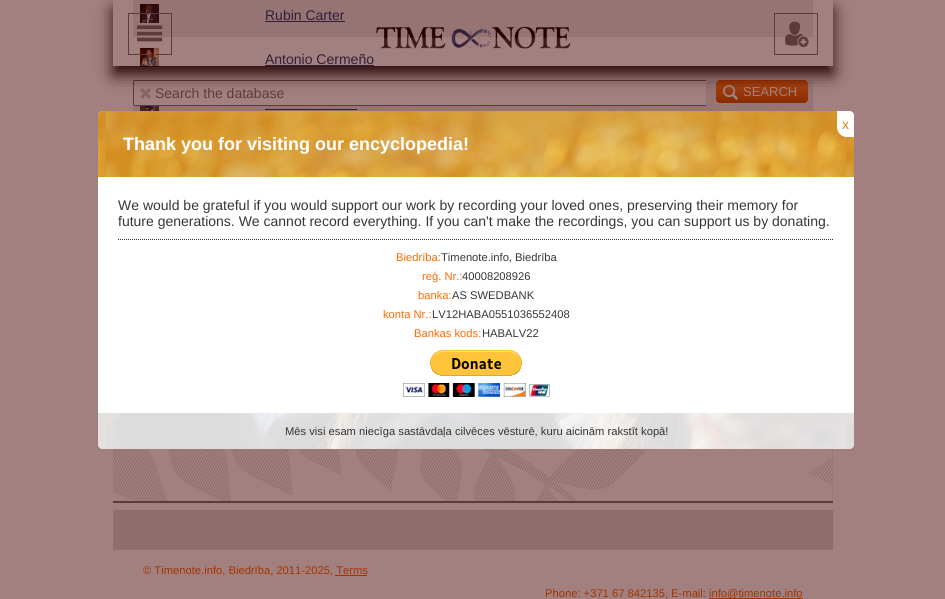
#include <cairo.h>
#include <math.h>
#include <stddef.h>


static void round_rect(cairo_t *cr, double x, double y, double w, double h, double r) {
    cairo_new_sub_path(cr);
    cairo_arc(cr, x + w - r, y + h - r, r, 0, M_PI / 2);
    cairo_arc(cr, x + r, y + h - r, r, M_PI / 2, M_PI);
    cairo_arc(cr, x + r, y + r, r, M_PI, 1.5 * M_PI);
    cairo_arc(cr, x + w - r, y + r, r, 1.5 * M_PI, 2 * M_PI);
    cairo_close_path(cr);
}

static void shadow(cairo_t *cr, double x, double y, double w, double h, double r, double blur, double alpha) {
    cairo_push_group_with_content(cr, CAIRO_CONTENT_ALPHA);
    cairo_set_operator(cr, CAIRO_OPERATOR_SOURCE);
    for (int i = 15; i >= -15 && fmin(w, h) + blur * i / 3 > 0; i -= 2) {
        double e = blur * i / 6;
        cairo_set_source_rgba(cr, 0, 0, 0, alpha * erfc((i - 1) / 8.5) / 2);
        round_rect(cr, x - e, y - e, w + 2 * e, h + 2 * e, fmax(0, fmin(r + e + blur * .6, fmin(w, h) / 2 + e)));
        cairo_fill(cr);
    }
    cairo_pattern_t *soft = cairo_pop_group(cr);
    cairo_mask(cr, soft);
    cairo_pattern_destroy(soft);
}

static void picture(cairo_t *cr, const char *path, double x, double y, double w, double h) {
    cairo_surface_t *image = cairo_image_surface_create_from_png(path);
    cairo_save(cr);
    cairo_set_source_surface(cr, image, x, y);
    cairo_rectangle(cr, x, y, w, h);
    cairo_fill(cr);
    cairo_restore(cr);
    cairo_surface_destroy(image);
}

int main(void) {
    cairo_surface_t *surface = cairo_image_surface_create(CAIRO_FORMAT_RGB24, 945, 599);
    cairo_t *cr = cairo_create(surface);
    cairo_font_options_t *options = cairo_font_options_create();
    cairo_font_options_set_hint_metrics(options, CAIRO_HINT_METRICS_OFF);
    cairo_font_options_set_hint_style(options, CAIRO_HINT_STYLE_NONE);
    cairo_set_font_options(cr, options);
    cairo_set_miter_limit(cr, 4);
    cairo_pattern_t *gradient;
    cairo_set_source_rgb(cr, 0.635, 0.502, 0.502);
    cairo_paint(cr);
    cairo_set_source_rgb(cr, 0.365, 0.231, 0.231);
    cairo_rectangle(cr, 113, 501, 720, 2);
    cairo_fill(cr);
    cairo_set_source_rgb(cr, 0.588, 0.455, 0.455);
    cairo_rectangle(cr, 133, 0, 680, 37);
    cairo_fill(cr);
    picture(cr, "img1.png", 140, 4, 19, 19);
    cairo_select_font_face(cr, "Liberation Sans", CAIRO_FONT_SLANT_NORMAL, CAIRO_FONT_WEIGHT_NORMAL);
    cairo_set_font_size(cr, 14);
    cairo_set_source_rgb(cr, 0.196, 0.118, 0.227);
    cairo_move_to(cr, 265, 20);
    cairo_show_text(cr, "Rubin Carter");
    cairo_rectangle(cr, 265, 21, 80, 1);
    cairo_fill(cr);
    picture(cr, "img2.png", 140, 48, 19, 19);
    cairo_move_to(cr, 265, 64);
    cairo_show_text(cr, "Antonio Cermeño");
    cairo_rectangle(cr, 265, 65, 109, 1);
    cairo_fill(cr);
    cairo_set_source_rgb(cr, 0.588, 0.455, 0.455);
    cairo_rectangle(cr, 133, 81, 680, 30);
    cairo_fill(cr);
    picture(cr, "img3.png", 140, 106, 19, 5);
    cairo_set_source_rgb(cr, 0.196, 0.118, 0.227);
    cairo_rectangle(cr, 265, 109, 92, 1);
    cairo_fill(cr);
    picture(cr, "img4.png", 113, 449, 720, 52);
    cairo_set_source_rgb(cr, 0.635, 0.502, 0.502);
    cairo_new_path(cr);
    cairo_move_to(cr, 135, 80);
    cairo_line_to(cr, 706, 80);
    cairo_line_to(cr, 706, 106);
    cairo_line_to(cr, 135, 106);
    cairo_curve_to(cr, 134, 106, 133, 105, 133, 104);
    cairo_line_to(cr, 133, 82);
    cairo_curve_to(cr, 133, 81, 134, 80, 135, 80);
    cairo_close_path(cr);
    cairo_fill(cr);
    gradient = cairo_pattern_create_linear(762, 80, 762, 103);
    cairo_pattern_add_color_stop_rgba(gradient, 0, 0.635, 0.208, 0, 1);
    cairo_pattern_add_color_stop_rgba(gradient, 0.33, 0.635, 0.251, 0.071, 1);
    cairo_pattern_add_color_stop_rgba(gradient, 0.66, 0.588, 0.2, 0.012, 1);
    cairo_pattern_add_color_stop_rgba(gradient, 1, 0.537, 0.173, 0, 1);
    cairo_set_source(cr, gradient);
    cairo_pattern_destroy(gradient);
    round_rect(cr, 716, 80, 92, 23, 4);
    cairo_fill(cr);
    cairo_save(cr);
    cairo_rectangle(cr, 133, 80, 573, 26);
    cairo_clip(cr);
    round_rect(cr, 133.5, 80.5, 584, 25, 1.5);
    cairo_set_source_rgb(cr, 0.365, 0.231, 0.231);
    cairo_set_line_width(cr, 1);
    cairo_stroke(cr);
    cairo_restore(cr);
    picture(cr, "img8.png", 140, 88, 11, 11);
    picture(cr, "img9.png", 723, 84, 15, 16);
    cairo_save(cr);
    cairo_set_fill_rule(cr, CAIRO_FILL_RULE_EVEN_ODD);
    cairo_new_path(cr);
    cairo_move_to(cr, 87, 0);
    cairo_line_to(cr, 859, 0);
    cairo_line_to(cr, 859, 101);
    cairo_line_to(cr, 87, 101);
    cairo_close_path(cr);
    cairo_move_to(cr, 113, 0);
    cairo_line_to(cr, 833, 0);
    cairo_line_to(cr, 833, 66);
    cairo_line_to(cr, 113, 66);
    cairo_close_path(cr);
    cairo_clip(cr);
    cairo_set_source_rgb(cr, 0.133, 0, 0);
    shadow(cr, 114, 10, 718, 64, 0, 8.5, 1);
    cairo_restore(cr);
    cairo_rectangle(cr, 128.5, 13.5, 43, 41);
    cairo_set_source_rgb(cr, 0.365, 0.231, 0.231);
    cairo_set_line_width(cr, 1);
    cairo_stroke(cr);
    picture(cr, "img5.png", 136, 25, 27, 17);
    picture(cr, "img6.png", 375, 26, 196, 23);
    cairo_rectangle(cr, 774.5, 13.5, 43, 41);
    cairo_stroke(cr);
    picture(cr, "img7.png", 785, 21, 24, 26);
    cairo_move_to(cr, 155, 98);
    cairo_show_text(cr, "Search the database");
    cairo_set_font_size(cr, 13);
    cairo_set_source_rgb(cr, 0.635, 0.502, 0.502);
    cairo_move_to(cr, 743, 96);
    cairo_show_text(cr, "SEARCH");
    cairo_set_source_rgb(cr, 1, 1, 1);
    round_rect(cr, 98, 111, 756, 338, 5);
    cairo_fill(cr);
    picture(cr, "img10.png", 98, 111, 756, 66);
    cairo_new_path(cr);
    cairo_move_to(cr, 837, 111);
    cairo_line_to(cr, 849, 111);
    cairo_curve_to(cr, 852, 111, 854, 113, 854, 116);
    cairo_line_to(cr, 854, 137);
    cairo_line_to(cr, 847, 137);
    cairo_curve_to(cr, 841.5, 137, 837, 132.5, 837, 127);
    cairo_close_path(cr);
    cairo_fill(cr);
    cairo_set_font_size(cr, 14);
    cairo_set_source_rgb(cr, 0.82, 0.545, 0.129);
    cairo_move_to(cr, 842, 129);
    cairo_show_text(cr, "x");
    cairo_select_font_face(cr, "Liberation Sans", CAIRO_FONT_SLANT_NORMAL, CAIRO_FONT_WEIGHT_BOLD);
    cairo_set_font_size(cr, 18);
    cairo_set_source_rgb(cr, 1, 1, 1);
    cairo_move_to(cr, 123, 150);
    cairo_show_text(cr, "Thank you for visiting our encyclopedia!");
    cairo_select_font_face(cr, "Liberation Sans", CAIRO_FONT_SLANT_NORMAL, CAIRO_FONT_WEIGHT_NORMAL);
    cairo_set_font_size(cr, 14);
    cairo_set_source_rgb(cr, 0.212, 0.212, 0.212);
    cairo_move_to(cr, 118, 210);
    cairo_show_text(cr, "We would be grateful if you would support our work by recording your loved ones, preserving their memory for");
    cairo_move_to(cr, 118, 226);
    cairo_show_text(cr, "future generations. We cannot record everything. If you can't make the recordings, you can support us by donating.");
    cairo_new_path(cr);
    cairo_move_to(cr, 118, 239.5);
    cairo_line_to(cr, 834, 239.5);
    cairo_set_dash(cr, (double[]){1, 1}, 2, 0);
    cairo_stroke(cr);
    cairo_set_font_size(cr, 11.2);
    cairo_set_source_rgb(cr, 1, 0.416, 0);
    cairo_move_to(cr, 396, 261);
    cairo_show_text(cr, "Biedrība:");
    cairo_set_source_rgb(cr, 0.212, 0.212, 0.212);
    cairo_move_to(cr, 441, 261);
    cairo_show_text(cr, "Timenote.info, Biedrība");
    cairo_set_source_rgb(cr, 1, 0.416, 0);
    cairo_move_to(cr, 422, 280);
    cairo_show_text(cr, "reģ. Nr.:");
    cairo_set_source_rgb(cr, 0.212, 0.212, 0.212);
    cairo_move_to(cr, 462, 280);
    cairo_show_text(cr, "40008208926");
    cairo_set_source_rgb(cr, 1, 0.416, 0);
    cairo_move_to(cr, 418, 299);
    cairo_show_text(cr, "banka:");
    cairo_set_source_rgb(cr, 0.212, 0.212, 0.212);
    cairo_move_to(cr, 452, 299);
    cairo_show_text(cr, "AS SWEDBANK");
    cairo_set_source_rgb(cr, 1, 0.416, 0);
    cairo_move_to(cr, 383, 318);
    cairo_show_text(cr, "konta Nr.:");
    cairo_set_source_rgb(cr, 0.212, 0.212, 0.212);
    cairo_move_to(cr, 432, 318);
    cairo_show_text(cr, "LV12HABA0551036552408");
    cairo_set_source_rgb(cr, 1, 0.416, 0);
    cairo_move_to(cr, 414, 337);
    cairo_show_text(cr, "Bankas kods:");
    cairo_set_source_rgb(cr, 0.212, 0.212, 0.212);
    cairo_move_to(cr, 482, 337);
    cairo_show_text(cr, "HABALV22");
    picture(cr, "img11.png", 403, 350, 147, 47);
    picture(cr, "img12.png", 98, 413, 756, 36);
    cairo_move_to(cr, 285, 435);
    cairo_show_text(cr, "Mēs visi esam niecīga sastāvdaļa cilvēces vēsturē, kuru aicinām rakstīt kopā!");
    cairo_set_source_rgb(cr, 0.565, 0.431, 0.431);
    cairo_rectangle(cr, 113, 510, 720, 40);
    cairo_fill(cr);
    cairo_set_source_rgb(cr, 0.635, 0.208, 0);
    cairo_move_to(cr, 143, 574);
    cairo_show_text(cr, "© Timenote.info, Biedrība, 2011-2025, Terms");
    cairo_rectangle(cr, 335, 575, 32, 1);
    cairo_fill(cr);
    cairo_move_to(cr, 545, 597);
    cairo_show_text(cr, "Phone: +371 67 842135, E-mail:");
    cairo_rectangle(cr, 709, 598, 94, 1);
    cairo_fill(cr);
    cairo_move_to(cr, 709, 597);
    cairo_show_text(cr, "info@timenote.info");
    cairo_surface_write_to_png(surface, "page.png");
    cairo_font_options_destroy(options);
    cairo_destroy(cr);
    cairo_surface_destroy(surface);
    return 0;
}
